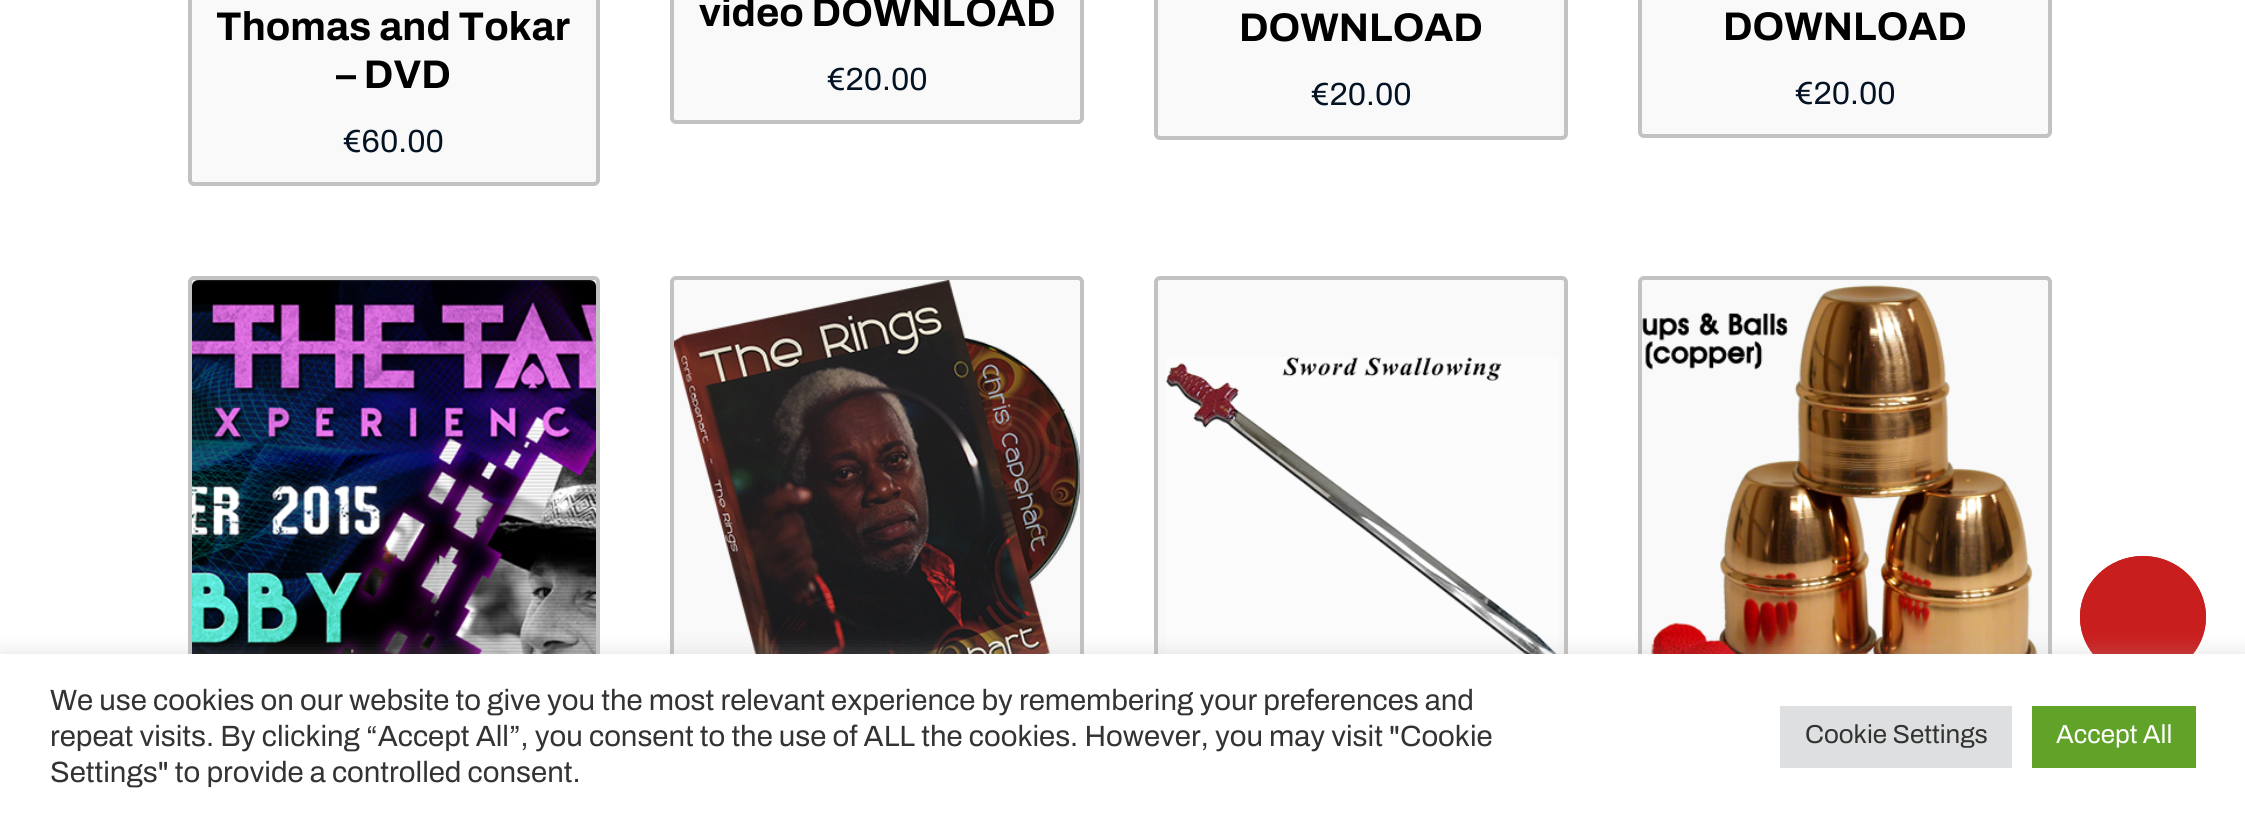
#include <cairo.h>
#include <math.h>
#include <stddef.h>


static void round_rect(cairo_t *cr, double x, double y, double w, double h, double r) {
    cairo_new_sub_path(cr);
    cairo_arc(cr, x + w - r, y + h - r, r, 0, M_PI / 2);
    cairo_arc(cr, x + r, y + h - r, r, M_PI / 2, M_PI);
    cairo_arc(cr, x + r, y + r, r, M_PI, 1.5 * M_PI);
    cairo_arc(cr, x + w - r, y + r, r, 1.5 * M_PI, 2 * M_PI);
    cairo_close_path(cr);
}

static void shadow(cairo_t *cr, double x, double y, double w, double h, double r, double blur, double alpha) {
    cairo_push_group_with_content(cr, CAIRO_CONTENT_ALPHA);
    cairo_set_operator(cr, CAIRO_OPERATOR_SOURCE);
    for (int i = 15; i >= -15 && fmin(w, h) + blur * i / 3 > 0; i -= 2) {
        double e = blur * i / 6;
        cairo_set_source_rgba(cr, 0, 0, 0, alpha * erfc((i - 1) / 8.5) / 2);
        round_rect(cr, x - e, y - e, w + 2 * e, h + 2 * e, fmax(0, fmin(r + e + blur * .6, fmin(w, h) / 2 + e)));
        cairo_fill(cr);
    }
    cairo_pattern_t *soft = cairo_pop_group(cr);
    cairo_mask(cr, soft);
    cairo_pattern_destroy(soft);
}

static void picture(cairo_t *cr, const char *path, double x, double y, double w, double h) {
    cairo_surface_t *image = cairo_image_surface_create_from_png(path);
    cairo_save(cr);
    cairo_set_source_surface(cr, image, x, y);
    cairo_rectangle(cr, x, y, w, h);
    cairo_fill(cr);
    cairo_restore(cr);
    cairo_surface_destroy(image);
}

int main(void) {
    cairo_surface_t *surface = cairo_image_surface_create(CAIRO_FORMAT_RGB24, 2245, 817);
    cairo_t *cr = cairo_create(surface);
    cairo_font_options_t *options = cairo_font_options_create();
    cairo_font_options_set_hint_metrics(options, CAIRO_HINT_METRICS_OFF);
    cairo_font_options_set_hint_style(options, CAIRO_HINT_STYLE_NONE);
    cairo_set_font_options(cr, options);
    cairo_set_miter_limit(cr, 4);
    cairo_set_source_rgb(cr, 1, 1, 1);
    cairo_paint(cr);
    cairo_set_source_rgb(cr, 0.973, 0.973, 0.973);
    round_rect(cr, 190, -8, 408, 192, 4);
    cairo_fill_preserve(cr);
    cairo_set_source_rgb(cr, 0.761, 0.761, 0.761);
    cairo_set_line_width(cr, 4);
    cairo_stroke(cr);
    cairo_select_font_face(cr, "Archivo", CAIRO_FONT_SLANT_NORMAL, CAIRO_FONT_WEIGHT_BOLD);
    cairo_set_font_size(cr, 40);
    cairo_set_source_rgb(cr, 0, 0, 0);
    cairo_move_to(cr, 216, 40);
    cairo_show_text(cr, "Thomas and Tokar");
    cairo_move_to(cr, 336, 88);
    cairo_show_text(cr, "– DVD");
    cairo_select_font_face(cr, "Archivo", CAIRO_FONT_SLANT_NORMAL, CAIRO_FONT_WEIGHT_NORMAL);
    cairo_set_font_size(cr, 32);
    cairo_set_source_rgb(cr, 0.012, 0.078, 0.141);
    cairo_move_to(cr, 343, 152);
    cairo_show_text(cr, "€60.00");
    cairo_set_source_rgb(cr, 0.973, 0.973, 0.973);
    round_rect(cr, 672, -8, 410, 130, 4);
    cairo_fill_preserve(cr);
    cairo_set_source_rgb(cr, 0.761, 0.761, 0.761);
    cairo_stroke(cr);
    cairo_select_font_face(cr, "Archivo", CAIRO_FONT_SLANT_NORMAL, CAIRO_FONT_WEIGHT_BOLD);
    cairo_set_font_size(cr, 40);
    cairo_set_source_rgb(cr, 0, 0, 0);
    cairo_move_to(cr, 699, 26);
    cairo_show_text(cr, "video DOWNLOAD");
    cairo_select_font_face(cr, "Archivo", CAIRO_FONT_SLANT_NORMAL, CAIRO_FONT_WEIGHT_NORMAL);
    cairo_set_font_size(cr, 32);
    cairo_set_source_rgb(cr, 0.012, 0.078, 0.141);
    cairo_move_to(cr, 827, 90);
    cairo_show_text(cr, "€20.00");
    cairo_set_source_rgb(cr, 0.973, 0.973, 0.973);
    round_rect(cr, 1156, -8, 410, 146, 4);
    cairo_fill_preserve(cr);
    cairo_set_source_rgb(cr, 0.761, 0.761, 0.761);
    cairo_stroke(cr);
    cairo_select_font_face(cr, "Archivo", CAIRO_FONT_SLANT_NORMAL, CAIRO_FONT_WEIGHT_BOLD);
    cairo_set_font_size(cr, 40);
    cairo_set_source_rgb(cr, 0, 0, 0);
    cairo_move_to(cr, 1239, 41);
    cairo_show_text(cr, "DOWNLOAD");
    cairo_select_font_face(cr, "Archivo", CAIRO_FONT_SLANT_NORMAL, CAIRO_FONT_WEIGHT_NORMAL);
    cairo_set_font_size(cr, 32);
    cairo_set_source_rgb(cr, 0.012, 0.078, 0.141);
    cairo_move_to(cr, 1311, 105);
    cairo_show_text(cr, "€20.00");
    cairo_set_source_rgb(cr, 0.973, 0.973, 0.973);
    round_rect(cr, 1640, -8, 410, 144, 4);
    cairo_fill_preserve(cr);
    cairo_set_source_rgb(cr, 0.761, 0.761, 0.761);
    cairo_stroke(cr);
    cairo_select_font_face(cr, "Archivo", CAIRO_FONT_SLANT_NORMAL, CAIRO_FONT_WEIGHT_BOLD);
    cairo_set_font_size(cr, 40);
    cairo_set_source_rgb(cr, 0, 0, 0);
    cairo_move_to(cr, 1723, 40);
    cairo_show_text(cr, "DOWNLOAD");
    cairo_select_font_face(cr, "Archivo", CAIRO_FONT_SLANT_NORMAL, CAIRO_FONT_WEIGHT_NORMAL);
    cairo_set_font_size(cr, 32);
    cairo_set_source_rgb(cr, 0.012, 0.078, 0.141);
    cairo_move_to(cr, 1795, 104);
    cairo_show_text(cr, "€20.00");
    cairo_set_source_rgb(cr, 0.973, 0.973, 0.973);
    round_rect(cr, 190, 278, 408, 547, 4);
    cairo_fill_preserve(cr);
    cairo_set_source_rgb(cr, 0.761, 0.761, 0.761);
    cairo_stroke(cr);
    picture(cr, "img1.png", 192, 280, 404, 374);
    cairo_set_source_rgb(cr, 0.973, 0.973, 0.973);
    round_rect(cr, 672, 278, 410, 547, 4);
    cairo_fill_preserve(cr);
    cairo_set_source_rgb(cr, 0.761, 0.761, 0.761);
    cairo_stroke(cr);
    picture(cr, "img2.png", 674, 280, 406, 374);
    cairo_set_source_rgb(cr, 0.973, 0.973, 0.973);
    round_rect(cr, 1156, 278, 410, 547, 4);
    cairo_fill_preserve(cr);
    cairo_set_source_rgb(cr, 0.761, 0.761, 0.761);
    cairo_stroke(cr);
    picture(cr, "img3.png", 1166, 357, 393, 297);
    cairo_set_source_rgb(cr, 0.973, 0.973, 0.973);
    round_rect(cr, 1640, 278, 410, 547, 4);
    cairo_fill_preserve(cr);
    cairo_set_source_rgb(cr, 0.761, 0.761, 0.761);
    cairo_stroke(cr);
    picture(cr, "img4.png", 1642, 284, 396, 370);
    cairo_set_source_rgb(cr, 0.788, 0.118, 0.118);
    cairo_new_path(cr);
    cairo_move_to(cr, 2143, 556);
    cairo_curve_to(cr, 2178, 556, 2206, 583.5, 2206, 617);
    cairo_curve_to(cr, 2206, 650.5, 2178, 678, 2143, 678);
    cairo_curve_to(cr, 2108, 678, 2080, 650.5, 2080, 617);
    cairo_curve_to(cr, 2080, 583.5, 2108, 556, 2143, 556);
    cairo_close_path(cr);
    cairo_fill(cr);
    cairo_new_path(cr);
    cairo_move_to(cr, 2143, 558);
    cairo_curve_to(cr, 2176.5, 558, 2204, 584.5, 2204, 617);
    cairo_curve_to(cr, 2204, 649.5, 2176.5, 676, 2143, 676);
    cairo_curve_to(cr, 2109.5, 676, 2082, 649.5, 2082, 617);
    cairo_curve_to(cr, 2082, 584.5, 2109.5, 558, 2143, 558);
    cairo_close_path(cr);
    cairo_stroke(cr);
    cairo_set_source_rgb(cr, 0.675, 0.671, 0.671);
    shadow(cr, 0, 652, 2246, 164, 0, 10, 0.3);
    cairo_set_source_rgb(cr, 1, 1, 1);
    cairo_rectangle(cr, 0, 654, 2245, 163);
    cairo_fill(cr);
    cairo_set_font_size(cr, 29.35);
    cairo_set_source_rgb(cr, 0.2, 0.2, 0.2);
    cairo_move_to(cr, 50, 710);
    cairo_show_text(cr, "We use cookies on our website to give you the most relevant experience by remembering your preferences and");
    cairo_move_to(cr, 50, 746);
    cairo_show_text(cr, "repeat visits. By clicking “Accept All”, you consent to the use of ALL the cookies. However, you may visit \"Cookie");
    cairo_move_to(cr, 50, 782);
    cairo_show_text(cr, "Settings\" to provide a controlled consent.");
    cairo_set_source_rgb(cr, 0.871, 0.875, 0.878);
    cairo_rectangle(cr, 1780, 706, 232, 62);
    cairo_fill(cr);
    cairo_set_font_size(cr, 26);
    cairo_set_source_rgb(cr, 0.2, 0.2, 0.2);
    cairo_move_to(cr, 1805, 743);
    cairo_show_text(cr, "Cookie Settings");
    cairo_set_source_rgb(cr, 0.38, 0.635, 0.161);
    cairo_rectangle(cr, 2032, 706, 164, 62);
    cairo_fill(cr);
    cairo_set_source_rgb(cr, 1, 1, 1);
    cairo_move_to(cr, 2056, 743);
    cairo_show_text(cr, "Accept All");
    cairo_surface_write_to_png(surface, "page.png");
    cairo_font_options_destroy(options);
    cairo_destroy(cr);
    cairo_surface_destroy(surface);
    return 0;
}
